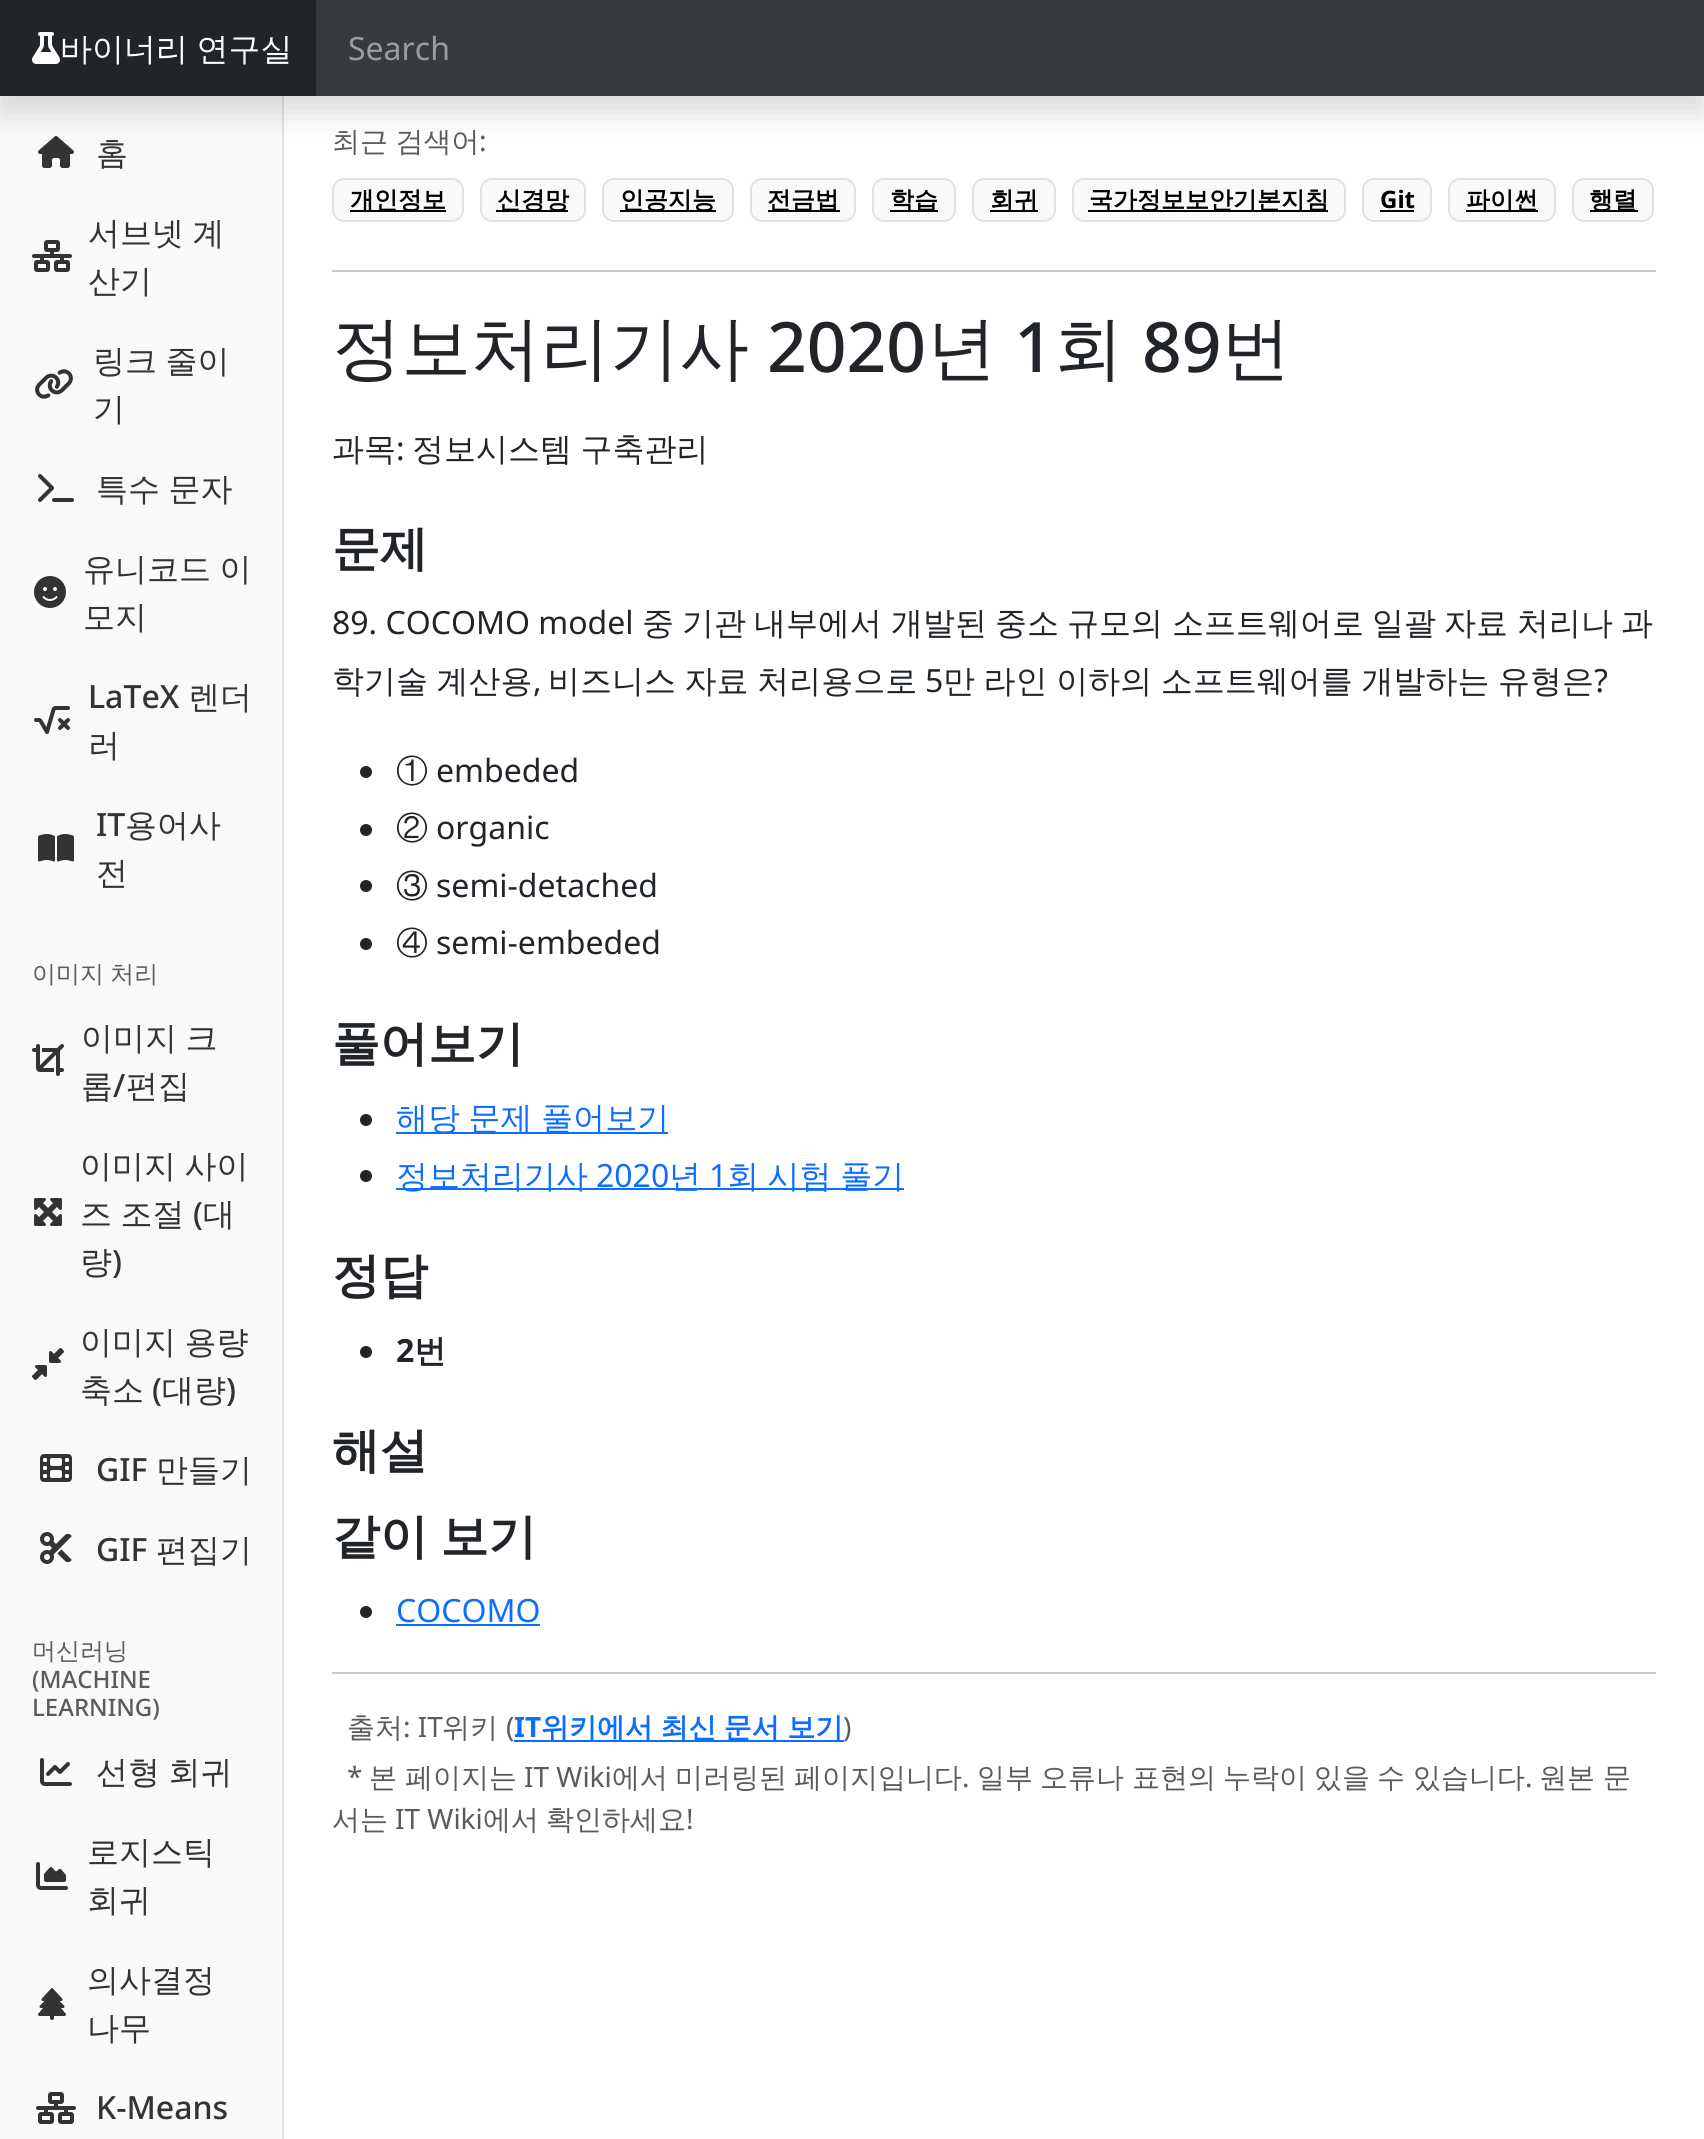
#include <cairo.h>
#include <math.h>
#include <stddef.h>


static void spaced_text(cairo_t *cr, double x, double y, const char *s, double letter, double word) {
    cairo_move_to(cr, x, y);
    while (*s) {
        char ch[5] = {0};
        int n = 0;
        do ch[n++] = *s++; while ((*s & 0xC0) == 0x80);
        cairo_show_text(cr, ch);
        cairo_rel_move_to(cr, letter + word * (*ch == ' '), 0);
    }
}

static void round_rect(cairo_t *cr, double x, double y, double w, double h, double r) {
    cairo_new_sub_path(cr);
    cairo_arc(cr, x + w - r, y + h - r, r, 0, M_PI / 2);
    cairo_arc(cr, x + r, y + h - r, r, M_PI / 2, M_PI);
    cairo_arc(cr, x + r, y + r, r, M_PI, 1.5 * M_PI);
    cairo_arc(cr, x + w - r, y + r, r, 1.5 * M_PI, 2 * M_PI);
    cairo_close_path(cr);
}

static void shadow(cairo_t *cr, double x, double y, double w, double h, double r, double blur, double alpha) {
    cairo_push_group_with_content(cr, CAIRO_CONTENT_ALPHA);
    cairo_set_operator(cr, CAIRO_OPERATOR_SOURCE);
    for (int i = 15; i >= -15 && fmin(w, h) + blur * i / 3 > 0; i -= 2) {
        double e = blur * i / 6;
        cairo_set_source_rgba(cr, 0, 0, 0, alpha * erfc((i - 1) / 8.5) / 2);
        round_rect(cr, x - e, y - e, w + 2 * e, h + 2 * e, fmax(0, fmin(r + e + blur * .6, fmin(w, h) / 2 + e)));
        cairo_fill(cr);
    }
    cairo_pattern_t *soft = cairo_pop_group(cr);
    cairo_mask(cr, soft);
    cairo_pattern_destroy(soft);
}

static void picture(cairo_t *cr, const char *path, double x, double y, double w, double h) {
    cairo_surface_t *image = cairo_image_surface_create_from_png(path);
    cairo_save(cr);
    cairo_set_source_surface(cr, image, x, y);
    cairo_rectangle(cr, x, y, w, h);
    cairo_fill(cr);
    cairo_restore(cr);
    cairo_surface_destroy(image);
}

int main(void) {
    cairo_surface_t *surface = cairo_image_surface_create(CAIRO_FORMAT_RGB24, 1704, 2139);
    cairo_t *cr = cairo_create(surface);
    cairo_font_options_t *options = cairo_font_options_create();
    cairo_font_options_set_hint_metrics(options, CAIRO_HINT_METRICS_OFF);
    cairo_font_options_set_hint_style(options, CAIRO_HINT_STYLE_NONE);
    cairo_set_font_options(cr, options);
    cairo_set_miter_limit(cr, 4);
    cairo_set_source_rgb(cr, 1, 1, 1);
    cairo_paint(cr);
    cairo_set_source_rgb(cr, 0.973, 0.976, 0.98);
    cairo_rectangle(cr, 0, 96, 282, 2043);
    cairo_fill(cr);
    cairo_set_source_rgb(cr, 0.875, 0.878, 0.882);
    cairo_rectangle(cr, 282, 96, 2, 2043);
    cairo_fill(cr);
    picture(cr, "img2.png", 38, 136, 36, 32);
    cairo_set_source_rgb(cr, 0, 0, 0);
    shadow(cr, 0, 16, 1704, 96, 0, 16, 0.15);
    cairo_set_source_rgb(cr, 0.129, 0.145, 0.161);
    cairo_rectangle(cr, 0, 0, 316, 96);
    cairo_fill(cr);
    picture(cr, "img1.png", 32, 32, 28, 32);
    cairo_select_font_face(cr, "WenQuanYi Zen Hei Medium", CAIRO_FONT_SLANT_NORMAL, CAIRO_FONT_WEIGHT_NORMAL);
    cairo_set_font_size(cr, 32);
    cairo_set_source_rgb(cr, 1, 1, 1);
    spaced_text(cr, 60, 60, "바이너리 연구실", 0, -1);
    cairo_set_source_rgb(cr, 0.216, 0.231, 0.243);
    cairo_rectangle(cr, 316, 0, 1388, 96);
    cairo_fill(cr);
    cairo_select_font_face(cr, "Noto Sans", CAIRO_FONT_SLANT_NORMAL, CAIRO_FONT_WEIGHT_NORMAL);
    cairo_set_source_rgb(cr, 0.608, 0.616, 0.624);
    cairo_move_to(cr, 348, 60);
    cairo_show_text(cr, "Search");
    cairo_select_font_face(cr, "WenQuanYi Zen Hei Medium", CAIRO_FONT_SLANT_NORMAL, CAIRO_FONT_WEIGHT_NORMAL);
    cairo_set_source_rgb(cr, 0.2, 0.2, 0.2);
    cairo_move_to(cr, 96, 164);
    cairo_show_text(cr, "홈");
    spaced_text(cr, 88, 244, "서브넷 계", 0, -1);
    picture(cr, "img3.png", 32, 240, 40, 32);
    cairo_move_to(cr, 88, 292);
    cairo_show_text(cr, "산기");
    spaced_text(cr, 93, 372, "링크 줄이", 0, -1);
    picture(cr, "img4.png", 35, 369, 38, 30);
    cairo_move_to(cr, 93, 420);
    cairo_show_text(cr, "기");
    picture(cr, "img5.png", 38, 474, 36, 28);
    spaced_text(cr, 96, 500, "특수 문자", 0, -1);
    spaced_text(cr, 83, 580, "유니코드 이", 0, -1);
    picture(cr, "img6.png", 34, 576, 32, 32);
    cairo_move_to(cr, 83, 628);
    cairo_show_text(cr, "모지");
    cairo_select_font_face(cr, "Noto Sans Medium", CAIRO_FONT_SLANT_NORMAL, CAIRO_FONT_WEIGHT_NORMAL);
    cairo_move_to(cr, 88, 708);
    cairo_show_text(cr, "LaTeX");
    cairo_select_font_face(cr, "WenQuanYi Zen Hei Medium", CAIRO_FONT_SLANT_NORMAL, CAIRO_FONT_WEIGHT_NORMAL);
    cairo_move_to(cr, 188, 708);
    cairo_show_text(cr, "렌더");
    picture(cr, "img7.png", 34, 706, 36, 28);
    cairo_move_to(cr, 88, 756);
    cairo_show_text(cr, "러");
    cairo_select_font_face(cr, "Noto Sans Medium", CAIRO_FONT_SLANT_NORMAL, CAIRO_FONT_WEIGHT_NORMAL);
    cairo_move_to(cr, 96, 836);
    cairo_show_text(cr, "IT");
    cairo_select_font_face(cr, "WenQuanYi Zen Hei Medium", CAIRO_FONT_SLANT_NORMAL, CAIRO_FONT_WEIGHT_NORMAL);
    cairo_move_to(cr, 125, 836);
    cairo_show_text(cr, "용어사");
    picture(cr, "img8.png", 38, 834, 36, 28);
    cairo_move_to(cr, 96, 884);
    cairo_show_text(cr, "전");
    cairo_set_font_size(cr, 24);
    cairo_set_source_rgb(cr, 0.349, 0.361, 0.373);
    spaced_text(cr, 32, 982, "이미지 처리", 0, -1);
    cairo_set_font_size(cr, 32);
    cairo_set_source_rgb(cr, 0.2, 0.2, 0.2);
    spaced_text(cr, 81, 1049, "이미지 크", 0, -1);
    picture(cr, "img9.png", 32, 1044, 32, 32);
    cairo_move_to(cr, 81, 1097);
    cairo_show_text(cr, "롭");
    cairo_select_font_face(cr, "Noto Sans Medium", CAIRO_FONT_SLANT_NORMAL, CAIRO_FONT_WEIGHT_NORMAL);
    cairo_move_to(cr, 113, 1097);
    cairo_show_text(cr, "/");
    cairo_select_font_face(cr, "WenQuanYi Zen Hei Medium", CAIRO_FONT_SLANT_NORMAL, CAIRO_FONT_WEIGHT_NORMAL);
    cairo_move_to(cr, 126, 1097);
    cairo_show_text(cr, "편집");
    spaced_text(cr, 80, 1177, "이미지 사이", 0, -1);
    picture(cr, "img10.png", 34, 1198, 28, 28);
    spaced_text(cr, 80, 1225, "즈 조절", 0, -1);
    cairo_select_font_face(cr, "Noto Sans Medium", CAIRO_FONT_SLANT_NORMAL, CAIRO_FONT_WEIGHT_NORMAL);
    cairo_move_to(cr, 193, 1225);
    cairo_show_text(cr, "(");
    cairo_select_font_face(cr, "WenQuanYi Zen Hei Medium", CAIRO_FONT_SLANT_NORMAL, CAIRO_FONT_WEIGHT_NORMAL);
    cairo_move_to(cr, 203, 1225);
    cairo_show_text(cr, "대");
    cairo_move_to(cr, 80, 1273);
    cairo_show_text(cr, "량");
    cairo_select_font_face(cr, "Noto Sans Medium", CAIRO_FONT_SLANT_NORMAL, CAIRO_FONT_WEIGHT_NORMAL);
    cairo_move_to(cr, 112, 1273);
    cairo_show_text(cr, ")");
    cairo_select_font_face(cr, "WenQuanYi Zen Hei Medium", CAIRO_FONT_SLANT_NORMAL, CAIRO_FONT_WEIGHT_NORMAL);
    spaced_text(cr, 80, 1353, "이미지 용량", 0, -1);
    picture(cr, "img11.png", 32, 1348, 32, 32);
    cairo_move_to(cr, 80, 1401);
    cairo_show_text(cr, "축소");
    cairo_select_font_face(cr, "Noto Sans Medium", CAIRO_FONT_SLANT_NORMAL, CAIRO_FONT_WEIGHT_NORMAL);
    cairo_move_to(cr, 152, 1401);
    cairo_show_text(cr, "(");
    cairo_select_font_face(cr, "WenQuanYi Zen Hei Medium", CAIRO_FONT_SLANT_NORMAL, CAIRO_FONT_WEIGHT_NORMAL);
    cairo_move_to(cr, 162, 1401);
    cairo_show_text(cr, "대량");
    cairo_select_font_face(cr, "Noto Sans Medium", CAIRO_FONT_SLANT_NORMAL, CAIRO_FONT_WEIGHT_NORMAL);
    cairo_move_to(cr, 226, 1401);
    cairo_show_text(cr, ")");
    picture(cr, "img12.png", 40, 1454, 32, 28);
    cairo_move_to(cr, 96, 1481);
    cairo_show_text(cr, "GIF");
    cairo_select_font_face(cr, "WenQuanYi Zen Hei Medium", CAIRO_FONT_SLANT_NORMAL, CAIRO_FONT_WEIGHT_NORMAL);
    cairo_move_to(cr, 156, 1481);
    cairo_show_text(cr, "만들기");
    picture(cr, "img13.png", 40, 1532, 32, 32);
    cairo_select_font_face(cr, "Noto Sans Medium", CAIRO_FONT_SLANT_NORMAL, CAIRO_FONT_WEIGHT_NORMAL);
    cairo_move_to(cr, 96, 1561);
    cairo_show_text(cr, "GIF");
    cairo_select_font_face(cr, "WenQuanYi Zen Hei Medium", CAIRO_FONT_SLANT_NORMAL, CAIRO_FONT_WEIGHT_NORMAL);
    cairo_move_to(cr, 156, 1561);
    cairo_show_text(cr, "편집기");
    cairo_set_font_size(cr, 24);
    cairo_set_source_rgb(cr, 0.349, 0.361, 0.373);
    cairo_move_to(cr, 32, 1659);
    cairo_show_text(cr, "머신러닝");
    cairo_select_font_face(cr, "Noto Sans Medium", CAIRO_FONT_SLANT_NORMAL, CAIRO_FONT_WEIGHT_NORMAL);
    cairo_move_to(cr, 32, 1688);
    cairo_show_text(cr, "(MACHINE");
    cairo_move_to(cr, 32, 1716);
    cairo_show_text(cr, "LEARNING)");
    picture(cr, "img14.png", 40, 1758, 32, 28);
    cairo_select_font_face(cr, "WenQuanYi Zen Hei Medium", CAIRO_FONT_SLANT_NORMAL, CAIRO_FONT_WEIGHT_NORMAL);
    cairo_set_font_size(cr, 32);
    cairo_set_source_rgb(cr, 0.2, 0.2, 0.2);
    spaced_text(cr, 96, 1783, "선형 회귀", 0, -1);
    cairo_move_to(cr, 87, 1863);
    cairo_show_text(cr, "로지스틱");
    picture(cr, "img15.png", 36, 1862, 32, 28);
    cairo_move_to(cr, 87, 1911);
    cairo_show_text(cr, "회귀");
    cairo_move_to(cr, 87, 1991);
    cairo_show_text(cr, "의사결정");
    picture(cr, "img16.png", 38, 1988, 28, 32);
    cairo_move_to(cr, 87, 2039);
    cairo_show_text(cr, "나무");
    picture(cr, "img3.png", 36, 2092, 40, 32);
    cairo_select_font_face(cr, "Noto Sans Medium", CAIRO_FONT_SLANT_NORMAL, CAIRO_FONT_WEIGHT_NORMAL);
    cairo_move_to(cr, 96, 2119);
    cairo_show_text(cr, "K-Means");
    cairo_select_font_face(cr, "WenQuanYi Zen Hei Medium", CAIRO_FONT_SLANT_NORMAL, CAIRO_FONT_WEIGHT_NORMAL);
    cairo_set_font_size(cr, 28);
    cairo_set_source_rgb(cr, 0.349, 0.361, 0.373);
    spaced_text(cr, 332, 151, "최근 검색어", 0, -1);
    cairo_select_font_face(cr, "Noto Sans", CAIRO_FONT_SLANT_NORMAL, CAIRO_FONT_WEIGHT_NORMAL);
    cairo_move_to(cr, 479, 151);
    cairo_show_text(cr, ":");
    cairo_set_source_rgb(cr, 0.973, 0.976, 0.98);
    round_rect(cr, 333, 179, 130, 42, 11);
    cairo_fill_preserve(cr);
    cairo_set_source_rgb(cr, 0.871, 0.886, 0.902);
    cairo_stroke(cr);
    cairo_set_source_rgb(cr, 0, 0, 0);
    cairo_rectangle(cr, 350, 210, 96, 2);
    cairo_fill(cr);
    cairo_select_font_face(cr, "WenQuanYi Zen Hei", CAIRO_FONT_SLANT_NORMAL, CAIRO_FONT_WEIGHT_BOLD);
    cairo_set_font_size(cr, 24);
    cairo_move_to(cr, 350, 208);
    cairo_show_text(cr, "개인정보");
    cairo_set_source_rgb(cr, 0.973, 0.976, 0.98);
    round_rect(cr, 481, 179, 104, 42, 11);
    cairo_fill_preserve(cr);
    cairo_set_source_rgb(cr, 0.871, 0.886, 0.902);
    cairo_stroke(cr);
    cairo_set_source_rgb(cr, 0, 0, 0);
    cairo_rectangle(cr, 496, 210, 72, 2);
    cairo_fill(cr);
    cairo_move_to(cr, 497, 208);
    cairo_show_text(cr, "신경망");
    cairo_set_source_rgb(cr, 0.973, 0.976, 0.98);
    round_rect(cr, 603, 179, 130, 42, 11);
    cairo_fill_preserve(cr);
    cairo_set_source_rgb(cr, 0.871, 0.886, 0.902);
    cairo_stroke(cr);
    cairo_set_source_rgb(cr, 0, 0, 0);
    cairo_rectangle(cr, 620, 210, 96, 2);
    cairo_fill(cr);
    cairo_move_to(cr, 620, 208);
    cairo_show_text(cr, "인공지능");
    cairo_set_source_rgb(cr, 0.973, 0.976, 0.98);
    round_rect(cr, 751, 179, 104, 42, 11);
    cairo_fill_preserve(cr);
    cairo_set_source_rgb(cr, 0.871, 0.886, 0.902);
    cairo_stroke(cr);
    cairo_set_source_rgb(cr, 0, 0, 0);
    cairo_rectangle(cr, 768, 210, 72, 2);
    cairo_fill(cr);
    cairo_move_to(cr, 767, 208);
    cairo_show_text(cr, "전금법");
    cairo_set_source_rgb(cr, 0.973, 0.976, 0.98);
    round_rect(cr, 873, 179, 82, 42, 11);
    cairo_fill_preserve(cr);
    cairo_set_source_rgb(cr, 0.871, 0.886, 0.902);
    cairo_stroke(cr);
    cairo_set_source_rgb(cr, 0, 0, 0);
    cairo_rectangle(cr, 890, 210, 48, 2);
    cairo_fill(cr);
    cairo_move_to(cr, 890, 208);
    cairo_show_text(cr, "학습");
    cairo_set_source_rgb(cr, 0.973, 0.976, 0.98);
    round_rect(cr, 973, 179, 82, 42, 11);
    cairo_fill_preserve(cr);
    cairo_set_source_rgb(cr, 0.871, 0.886, 0.902);
    cairo_stroke(cr);
    cairo_set_source_rgb(cr, 0, 0, 0);
    cairo_rectangle(cr, 990, 210, 48, 2);
    cairo_fill(cr);
    cairo_move_to(cr, 990, 208);
    cairo_show_text(cr, "회귀");
    cairo_set_source_rgb(cr, 0.973, 0.976, 0.98);
    round_rect(cr, 1073, 179, 272, 42, 11);
    cairo_fill_preserve(cr);
    cairo_set_source_rgb(cr, 0.871, 0.886, 0.902);
    cairo_stroke(cr);
    cairo_set_source_rgb(cr, 0, 0, 0);
    cairo_rectangle(cr, 1088, 210, 240, 2);
    cairo_fill(cr);
    cairo_move_to(cr, 1089, 208);
    cairo_show_text(cr, "국가정보보안기본지침");
    cairo_set_source_rgb(cr, 0.973, 0.976, 0.98);
    round_rect(cr, 1363, 179, 68, 42, 11);
    cairo_fill_preserve(cr);
    cairo_set_source_rgb(cr, 0.871, 0.886, 0.902);
    cairo_stroke(cr);
    cairo_select_font_face(cr, "Noto Sans", CAIRO_FONT_SLANT_NORMAL, CAIRO_FONT_WEIGHT_BOLD);
    cairo_set_source_rgb(cr, 0, 0, 0);
    cairo_move_to(cr, 1380, 208);
    cairo_show_text(cr, "Git");
    cairo_rectangle(cr, 1380, 210, 34, 2);
    cairo_fill(cr);
    cairo_set_source_rgb(cr, 0.973, 0.976, 0.98);
    round_rect(cr, 1449, 179, 106, 42, 11);
    cairo_fill_preserve(cr);
    cairo_set_source_rgb(cr, 0.871, 0.886, 0.902);
    cairo_stroke(cr);
    cairo_set_source_rgb(cr, 0, 0, 0);
    cairo_rectangle(cr, 1466, 210, 72, 2);
    cairo_fill(cr);
    cairo_select_font_face(cr, "WenQuanYi Zen Hei", CAIRO_FONT_SLANT_NORMAL, CAIRO_FONT_WEIGHT_BOLD);
    cairo_move_to(cr, 1466, 208);
    cairo_show_text(cr, "파이썬");
    cairo_set_source_rgb(cr, 0.973, 0.976, 0.98);
    round_rect(cr, 1573, 179, 80, 42, 11);
    cairo_fill_preserve(cr);
    cairo_set_source_rgb(cr, 0.871, 0.886, 0.902);
    cairo_stroke(cr);
    cairo_set_source_rgb(cr, 0, 0, 0);
    cairo_rectangle(cr, 1590, 210, 48, 2);
    cairo_fill(cr);
    cairo_move_to(cr, 1589, 208);
    cairo_show_text(cr, "행렬");
    cairo_set_source_rgb(cr, 0.784, 0.788, 0.792);
    cairo_rectangle(cr, 332, 270, 1324, 2);
    cairo_fill(cr);
    cairo_select_font_face(cr, "WenQuanYi Zen Hei Medium", CAIRO_FONT_SLANT_NORMAL, CAIRO_FONT_WEIGHT_NORMAL);
    cairo_set_font_size(cr, 69.5);
    cairo_set_source_rgb(cr, 0.129, 0.145, 0.161);
    cairo_move_to(cr, 332, 372);
    cairo_show_text(cr, "정보처리기사");
    cairo_select_font_face(cr, "Noto Sans Medium", CAIRO_FONT_SLANT_NORMAL, CAIRO_FONT_WEIGHT_NORMAL);
    cairo_move_to(cr, 767, 372);
    cairo_show_text(cr, "2020");
    cairo_select_font_face(cr, "WenQuanYi Zen Hei Medium", CAIRO_FONT_SLANT_NORMAL, CAIRO_FONT_WEIGHT_NORMAL);
    cairo_move_to(cr, 927, 372);
    cairo_show_text(cr, "년");
    cairo_select_font_face(cr, "Noto Sans Medium", CAIRO_FONT_SLANT_NORMAL, CAIRO_FONT_WEIGHT_NORMAL);
    cairo_move_to(cr, 1014, 372);
    cairo_show_text(cr, "1");
    cairo_select_font_face(cr, "WenQuanYi Zen Hei Medium", CAIRO_FONT_SLANT_NORMAL, CAIRO_FONT_WEIGHT_NORMAL);
    cairo_move_to(cr, 1054, 372);
    cairo_show_text(cr, "회");
    cairo_select_font_face(cr, "Noto Sans Medium", CAIRO_FONT_SLANT_NORMAL, CAIRO_FONT_WEIGHT_NORMAL);
    cairo_move_to(cr, 1142, 372);
    cairo_show_text(cr, "89");
    cairo_select_font_face(cr, "WenQuanYi Zen Hei Medium", CAIRO_FONT_SLANT_NORMAL, CAIRO_FONT_WEIGHT_NORMAL);
    cairo_move_to(cr, 1221, 372);
    cairo_show_text(cr, "번");
    cairo_set_font_size(cr, 32);
    cairo_move_to(cr, 332, 460);
    cairo_show_text(cr, "과목");
    cairo_select_font_face(cr, "Noto Sans", CAIRO_FONT_SLANT_NORMAL, CAIRO_FONT_WEIGHT_NORMAL);
    cairo_move_to(cr, 396, 460);
    cairo_show_text(cr, ":");
    cairo_select_font_face(cr, "WenQuanYi Zen Hei Medium", CAIRO_FONT_SLANT_NORMAL, CAIRO_FONT_WEIGHT_NORMAL);
    spaced_text(cr, 412, 460, "정보시스템 구축관리", 0, -1);
    cairo_select_font_face(cr, "WenQuanYi Zen Hei", CAIRO_FONT_SLANT_NORMAL, CAIRO_FONT_WEIGHT_BOLD);
    cairo_set_font_size(cr, 48);
    cairo_move_to(cr, 332, 565);
    cairo_show_text(cr, "문제");
    cairo_select_font_face(cr, "Noto Sans", CAIRO_FONT_SLANT_NORMAL, CAIRO_FONT_WEIGHT_NORMAL);
    cairo_set_font_size(cr, 32);
    cairo_move_to(cr, 332, 634);
    cairo_show_text(cr, "89. COCOMO model");
    cairo_select_font_face(cr, "WenQuanYi Zen Hei Medium", CAIRO_FONT_SLANT_NORMAL, CAIRO_FONT_WEIGHT_NORMAL);
    cairo_move_to(cr, 642, 634);
    cairo_show_text(cr, "중");
    cairo_move_to(cr, 682, 634);
    cairo_show_text(cr, "기관");
    cairo_move_to(cr, 754, 634);
    cairo_show_text(cr, "내부에서");
    cairo_move_to(cr, 891, 634);
    cairo_show_text(cr, "개발된");
    cairo_move_to(cr, 995, 634);
    cairo_show_text(cr, "중소");
    cairo_move_to(cr, 1067, 634);
    cairo_show_text(cr, "규모의");
    cairo_move_to(cr, 1172, 634);
    cairo_show_text(cr, "소프트웨어로");
    cairo_move_to(cr, 1372, 634);
    cairo_show_text(cr, "일괄");
    cairo_move_to(cr, 1444, 634);
    cairo_show_text(cr, "자료");
    cairo_move_to(cr, 1517, 634);
    cairo_show_text(cr, "처리나");
    cairo_move_to(cr, 1621, 634);
    cairo_show_text(cr, "과");
    spaced_text(cr, 332, 692, "학기술 계산용", 0, -1);
    cairo_select_font_face(cr, "Noto Sans", CAIRO_FONT_SLANT_NORMAL, CAIRO_FONT_WEIGHT_NORMAL);
    cairo_move_to(cr, 533, 692);
    cairo_show_text(cr, ",");
    cairo_select_font_face(cr, "WenQuanYi Zen Hei Medium", CAIRO_FONT_SLANT_NORMAL, CAIRO_FONT_WEIGHT_NORMAL);
    spaced_text(cr, 548, 692, "비즈니스 자료 처리용으로", 0, -1);
    cairo_select_font_face(cr, "Noto Sans", CAIRO_FONT_SLANT_NORMAL, CAIRO_FONT_WEIGHT_NORMAL);
    cairo_move_to(cr, 925, 692);
    cairo_show_text(cr, "5");
    cairo_select_font_face(cr, "WenQuanYi Zen Hei Medium", CAIRO_FONT_SLANT_NORMAL, CAIRO_FONT_WEIGHT_NORMAL);
    spaced_text(cr, 943, 692, "만 라인 이하의 소프트웨어를 개발하는 유형은", 0, -1);
    cairo_select_font_face(cr, "Noto Sans", CAIRO_FONT_SLANT_NORMAL, CAIRO_FONT_WEIGHT_NORMAL);
    cairo_move_to(cr, 1594, 692);
    cairo_show_text(cr, "?");
    cairo_new_path(cr);
    cairo_arc(cr, 366, 772, 6, 0, 2 * M_PI);
    cairo_fill(cr);
    cairo_select_font_face(cr, "WenQuanYi Zen Hei Medium", CAIRO_FONT_SLANT_NORMAL, CAIRO_FONT_WEIGHT_NORMAL);
    cairo_move_to(cr, 396, 782);
    cairo_show_text(cr, "①");
    cairo_select_font_face(cr, "Noto Sans", CAIRO_FONT_SLANT_NORMAL, CAIRO_FONT_WEIGHT_NORMAL);
    cairo_move_to(cr, 436, 782);
    cairo_show_text(cr, "embeded");
    cairo_new_path(cr);
    cairo_arc(cr, 366, 830, 6, 0, 2 * M_PI);
    cairo_fill(cr);
    cairo_select_font_face(cr, "WenQuanYi Zen Hei Medium", CAIRO_FONT_SLANT_NORMAL, CAIRO_FONT_WEIGHT_NORMAL);
    cairo_move_to(cr, 396, 839);
    cairo_show_text(cr, "②");
    cairo_select_font_face(cr, "Noto Sans", CAIRO_FONT_SLANT_NORMAL, CAIRO_FONT_WEIGHT_NORMAL);
    cairo_move_to(cr, 436, 839);
    cairo_show_text(cr, "organic");
    cairo_new_path(cr);
    cairo_arc(cr, 366, 886, 6, 0, 2 * M_PI);
    cairo_fill(cr);
    cairo_select_font_face(cr, "WenQuanYi Zen Hei Medium", CAIRO_FONT_SLANT_NORMAL, CAIRO_FONT_WEIGHT_NORMAL);
    cairo_move_to(cr, 396, 897);
    cairo_show_text(cr, "③");
    cairo_select_font_face(cr, "Noto Sans", CAIRO_FONT_SLANT_NORMAL, CAIRO_FONT_WEIGHT_NORMAL);
    cairo_move_to(cr, 436, 897);
    cairo_show_text(cr, "semi-detached");
    cairo_new_path(cr);
    cairo_arc(cr, 366, 944, 6, 0, 2 * M_PI);
    cairo_fill(cr);
    cairo_select_font_face(cr, "WenQuanYi Zen Hei Medium", CAIRO_FONT_SLANT_NORMAL, CAIRO_FONT_WEIGHT_NORMAL);
    cairo_move_to(cr, 396, 954);
    cairo_show_text(cr, "④");
    cairo_select_font_face(cr, "Noto Sans", CAIRO_FONT_SLANT_NORMAL, CAIRO_FONT_WEIGHT_NORMAL);
    cairo_move_to(cr, 436, 954);
    cairo_show_text(cr, "semi-embeded");
    cairo_select_font_face(cr, "WenQuanYi Zen Hei", CAIRO_FONT_SLANT_NORMAL, CAIRO_FONT_WEIGHT_BOLD);
    cairo_set_font_size(cr, 48);
    cairo_move_to(cr, 332, 1060);
    cairo_show_text(cr, "풀어보기");
    cairo_new_path(cr);
    cairo_arc(cr, 366, 1120, 6, 0, 2 * M_PI);
    cairo_fill(cr);
    cairo_set_source_rgb(cr, 0.051, 0.431, 0.992);
    cairo_rectangle(cr, 396, 1132, 272, 2);
    cairo_fill(cr);
    cairo_select_font_face(cr, "WenQuanYi Zen Hei Medium", CAIRO_FONT_SLANT_NORMAL, CAIRO_FONT_WEIGHT_NORMAL);
    cairo_set_font_size(cr, 32);
    spaced_text(cr, 396, 1129, "해당 문제 풀어보기", 0, -1);
    cairo_set_source_rgb(cr, 0.129, 0.145, 0.161);
    cairo_new_path(cr);
    cairo_arc(cr, 366, 1176, 6, 0, 2 * M_PI);
    cairo_fill(cr);
    cairo_set_source_rgb(cr, 0.051, 0.431, 0.992);
    cairo_rectangle(cr, 396, 1188, 508, 2);
    cairo_fill(cr);
    cairo_move_to(cr, 396, 1187);
    cairo_show_text(cr, "정보처리기사");
    cairo_select_font_face(cr, "Noto Sans", CAIRO_FONT_SLANT_NORMAL, CAIRO_FONT_WEIGHT_NORMAL);
    cairo_move_to(cr, 596, 1187);
    cairo_show_text(cr, "2020");
    cairo_select_font_face(cr, "WenQuanYi Zen Hei Medium", CAIRO_FONT_SLANT_NORMAL, CAIRO_FONT_WEIGHT_NORMAL);
    cairo_move_to(cr, 669, 1187);
    cairo_show_text(cr, "년");
    cairo_select_font_face(cr, "Noto Sans", CAIRO_FONT_SLANT_NORMAL, CAIRO_FONT_WEIGHT_NORMAL);
    cairo_move_to(cr, 709, 1187);
    cairo_show_text(cr, "1");
    cairo_select_font_face(cr, "WenQuanYi Zen Hei Medium", CAIRO_FONT_SLANT_NORMAL, CAIRO_FONT_WEIGHT_NORMAL);
    spaced_text(cr, 727, 1187, "회 시험 풀기", 0, -1);
    cairo_select_font_face(cr, "WenQuanYi Zen Hei", CAIRO_FONT_SLANT_NORMAL, CAIRO_FONT_WEIGHT_BOLD);
    cairo_set_font_size(cr, 48);
    cairo_set_source_rgb(cr, 0.129, 0.145, 0.161);
    cairo_move_to(cr, 332, 1292);
    cairo_show_text(cr, "정답");
    cairo_new_path(cr);
    cairo_arc(cr, 366, 1352, 6, 0, 2 * M_PI);
    cairo_fill(cr);
    cairo_select_font_face(cr, "Noto Sans", CAIRO_FONT_SLANT_NORMAL, CAIRO_FONT_WEIGHT_BOLD);
    cairo_set_font_size(cr, 32);
    cairo_move_to(cr, 396, 1362);
    cairo_show_text(cr, "2");
    cairo_select_font_face(cr, "WenQuanYi Zen Hei", CAIRO_FONT_SLANT_NORMAL, CAIRO_FONT_WEIGHT_BOLD);
    cairo_move_to(cr, 414, 1362);
    cairo_show_text(cr, "번");
    cairo_set_font_size(cr, 48);
    cairo_move_to(cr, 332, 1467);
    cairo_show_text(cr, "해설");
    spaced_text(cr, 332, 1553, "같이 보기", 0, -2);
    cairo_new_path(cr);
    cairo_arc(cr, 366, 1612, 6, 0, 2 * M_PI);
    cairo_fill(cr);
    cairo_select_font_face(cr, "Noto Sans", CAIRO_FONT_SLANT_NORMAL, CAIRO_FONT_WEIGHT_NORMAL);
    cairo_set_font_size(cr, 32);
    cairo_set_source_rgb(cr, 0.051, 0.431, 0.992);
    cairo_move_to(cr, 396, 1622);
    cairo_show_text(cr, "COCOMO");
    cairo_rectangle(cr, 396, 1624, 144, 2);
    cairo_fill(cr);
    cairo_set_source_rgb(cr, 0.784, 0.788, 0.792);
    cairo_rectangle(cr, 332, 1672, 1324, 2);
    cairo_fill(cr);
    cairo_select_font_face(cr, "WenQuanYi Zen Hei Medium", CAIRO_FONT_SLANT_NORMAL, CAIRO_FONT_WEIGHT_NORMAL);
    cairo_set_font_size(cr, 28);
    cairo_set_source_rgb(cr, 0.349, 0.361, 0.373);
    cairo_move_to(cr, 347, 1737);
    cairo_show_text(cr, "출처");
    cairo_select_font_face(cr, "Noto Sans", CAIRO_FONT_SLANT_NORMAL, CAIRO_FONT_WEIGHT_NORMAL);
    cairo_move_to(cr, 403, 1737);
    cairo_show_text(cr, ": IT");
    cairo_select_font_face(cr, "WenQuanYi Zen Hei Medium", CAIRO_FONT_SLANT_NORMAL, CAIRO_FONT_WEIGHT_NORMAL);
    cairo_move_to(cr, 442, 1737);
    cairo_show_text(cr, "위키");
    cairo_select_font_face(cr, "Noto Sans", CAIRO_FONT_SLANT_NORMAL, CAIRO_FONT_WEIGHT_NORMAL);
    cairo_move_to(cr, 506, 1737);
    cairo_show_text(cr, "(");
    cairo_select_font_face(cr, "Noto Sans", CAIRO_FONT_SLANT_NORMAL, CAIRO_FONT_WEIGHT_BOLD);
    cairo_set_source_rgb(cr, 0.051, 0.431, 0.992);
    cairo_move_to(cr, 514, 1737);
    cairo_show_text(cr, "IT");
    cairo_rectangle(cr, 514, 1740, 330, 2);
    cairo_fill(cr);
    cairo_select_font_face(cr, "WenQuanYi Zen Hei", CAIRO_FONT_SLANT_NORMAL, CAIRO_FONT_WEIGHT_BOLD);
    spaced_text(cr, 541, 1737, "위키에서 최신 문서 보기", 0, -1);
    cairo_select_font_face(cr, "Noto Sans", CAIRO_FONT_SLANT_NORMAL, CAIRO_FONT_WEIGHT_NORMAL);
    cairo_set_source_rgb(cr, 0.349, 0.361, 0.373);
    cairo_move_to(cr, 843, 1737);
    cairo_show_text(cr, ")");
    cairo_move_to(cr, 347, 1787);
    cairo_show_text(cr, "*");
    cairo_select_font_face(cr, "WenQuanYi Zen Hei Medium", CAIRO_FONT_SLANT_NORMAL, CAIRO_FONT_WEIGHT_NORMAL);
    cairo_move_to(cr, 369, 1787);
    cairo_show_text(cr, "본");
    cairo_move_to(cr, 405, 1787);
    cairo_show_text(cr, "페이지는");
    cairo_select_font_face(cr, "Noto Sans", CAIRO_FONT_SLANT_NORMAL, CAIRO_FONT_WEIGHT_NORMAL);
    cairo_move_to(cr, 524, 1787);
    cairo_show_text(cr, "IT Wiki");
    cairo_select_font_face(cr, "WenQuanYi Zen Hei Medium", CAIRO_FONT_SLANT_NORMAL, CAIRO_FONT_WEIGHT_NORMAL);
    cairo_move_to(cr, 612, 1787);
    cairo_show_text(cr, "에서");
    cairo_move_to(cr, 675, 1787);
    cairo_show_text(cr, "미러링된");
    cairo_move_to(cr, 794, 1787);
    cairo_show_text(cr, "페이지입니다");
    cairo_select_font_face(cr, "Noto Sans", CAIRO_FONT_SLANT_NORMAL, CAIRO_FONT_WEIGHT_NORMAL);
    cairo_move_to(cr, 962, 1787);
    cairo_show_text(cr, ".");
    cairo_select_font_face(cr, "WenQuanYi Zen Hei Medium", CAIRO_FONT_SLANT_NORMAL, CAIRO_FONT_WEIGHT_NORMAL);
    cairo_move_to(cr, 977, 1787);
    cairo_show_text(cr, "일부");
    cairo_move_to(cr, 1040, 1787);
    cairo_show_text(cr, "오류나");
    cairo_move_to(cr, 1132, 1787);
    cairo_show_text(cr, "표현의");
    cairo_move_to(cr, 1223, 1787);
    cairo_show_text(cr, "누락이");
    cairo_move_to(cr, 1314, 1787);
    cairo_show_text(cr, "있을");
    cairo_move_to(cr, 1377, 1787);
    cairo_show_text(cr, "수");
    cairo_move_to(cr, 1413, 1787);
    cairo_show_text(cr, "있습니다");
    cairo_select_font_face(cr, "Noto Sans", CAIRO_FONT_SLANT_NORMAL, CAIRO_FONT_WEIGHT_NORMAL);
    cairo_move_to(cr, 1525, 1787);
    cairo_show_text(cr, ".");
    cairo_select_font_face(cr, "WenQuanYi Zen Hei Medium", CAIRO_FONT_SLANT_NORMAL, CAIRO_FONT_WEIGHT_NORMAL);
    cairo_move_to(cr, 1539, 1787);
    cairo_show_text(cr, "원본");
    cairo_move_to(cr, 1603, 1787);
    cairo_show_text(cr, "문");
    cairo_move_to(cr, 332, 1829);
    cairo_show_text(cr, "서는");
    cairo_select_font_face(cr, "Noto Sans", CAIRO_FONT_SLANT_NORMAL, CAIRO_FONT_WEIGHT_NORMAL);
    cairo_move_to(cr, 395, 1829);
    cairo_show_text(cr, "IT Wiki");
    cairo_select_font_face(cr, "WenQuanYi Zen Hei Medium", CAIRO_FONT_SLANT_NORMAL, CAIRO_FONT_WEIGHT_NORMAL);
    cairo_move_to(cr, 483, 1829);
    cairo_show_text(cr, "에서");
    cairo_move_to(cr, 546, 1829);
    cairo_show_text(cr, "확인하세요");
    cairo_select_font_face(cr, "Noto Sans", CAIRO_FONT_SLANT_NORMAL, CAIRO_FONT_WEIGHT_NORMAL);
    cairo_move_to(cr, 686, 1829);
    cairo_show_text(cr, "!");
    cairo_surface_write_to_png(surface, "page.png");
    cairo_font_options_destroy(options);
    cairo_destroy(cr);
    cairo_surface_destroy(surface);
    return 0;
}
